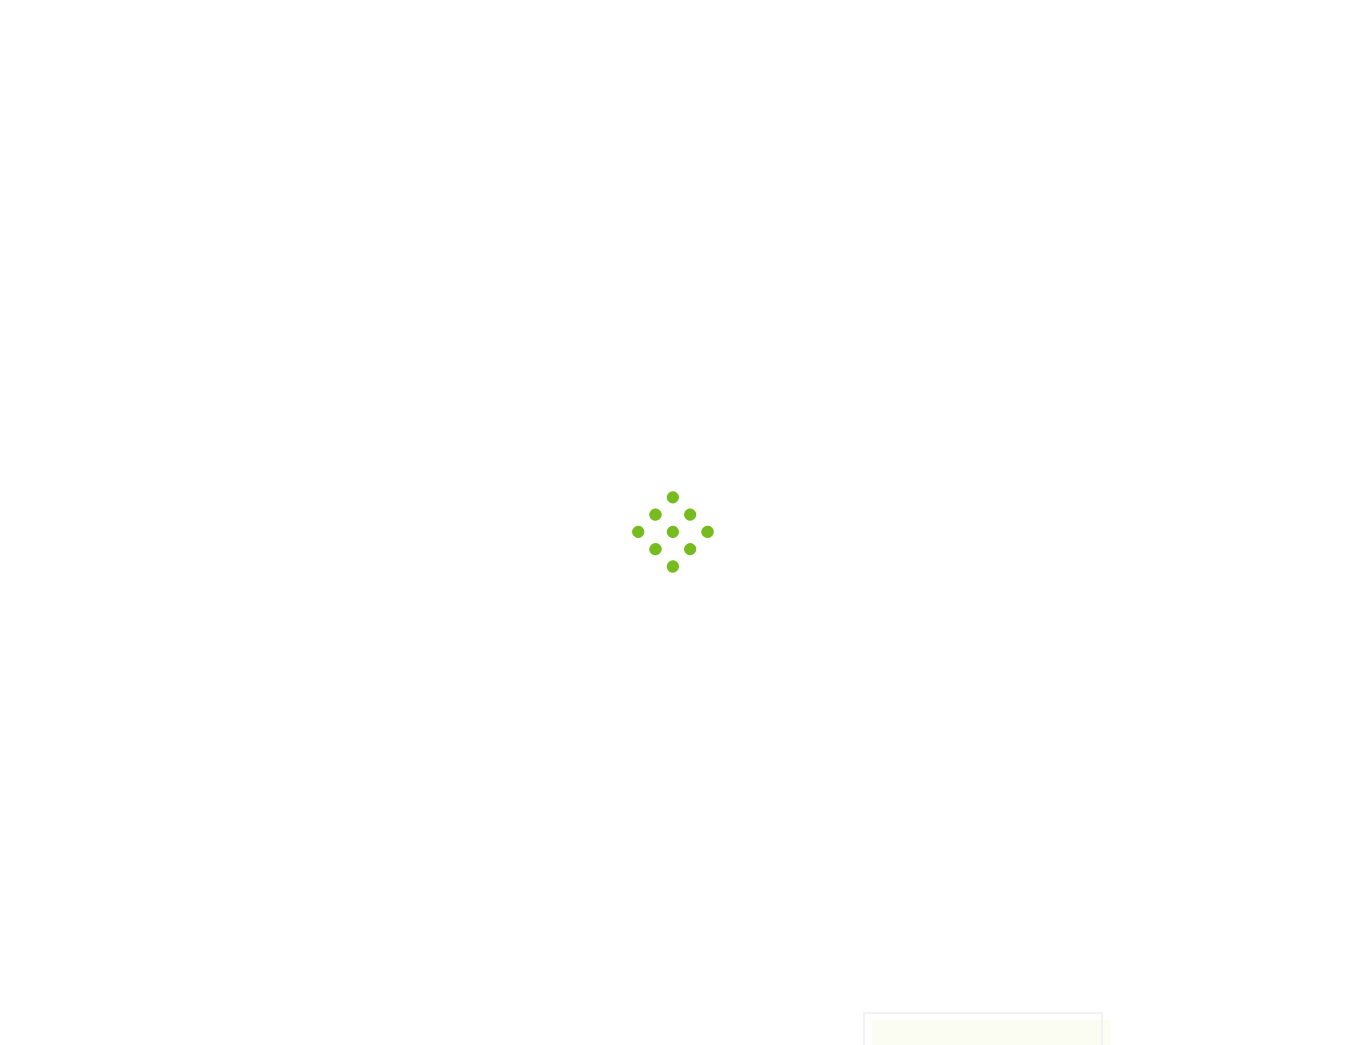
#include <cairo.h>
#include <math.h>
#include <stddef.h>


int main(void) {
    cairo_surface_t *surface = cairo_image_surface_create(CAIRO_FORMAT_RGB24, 1345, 1045);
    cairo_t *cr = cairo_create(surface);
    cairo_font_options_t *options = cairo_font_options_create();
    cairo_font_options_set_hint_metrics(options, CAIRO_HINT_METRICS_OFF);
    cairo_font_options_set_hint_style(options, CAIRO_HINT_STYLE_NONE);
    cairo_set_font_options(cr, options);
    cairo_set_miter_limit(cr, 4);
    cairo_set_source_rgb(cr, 1, 1, 1);
    cairo_paint(cr);
    cairo_set_source_rgb(cr, 0.467, 0.737, 0.122);
    cairo_new_path(cr);
    cairo_move_to(cr, 677, 493);
    cairo_curve_to(cr, 683, 498.5, 674, 507.5, 668.5, 501.5);
    cairo_curve_to(cr, 663, 496, 671.5, 487.5, 677, 493);
    cairo_close_path(cr);
    cairo_move_to(cr, 694.5, 510.5);
    cairo_curve_to(cr, 700, 516, 691.5, 524.5, 686, 519);
    cairo_curve_to(cr, 680, 513, 689, 504.5, 694.5, 510.5);
    cairo_close_path(cr);
    cairo_move_to(cr, 712, 527.5);
    cairo_curve_to(cr, 717.5, 533.5, 709, 542, 703, 536);
    cairo_curve_to(cr, 697.5, 530.5, 706, 522, 712, 527.5);
    cairo_close_path(cr);
    cairo_fill(cr);
    cairo_new_path(cr);
    cairo_move_to(cr, 660, 510.5);
    cairo_curve_to(cr, 665.5, 516, 657, 524.5, 651, 519);
    cairo_curve_to(cr, 645.5, 513, 654, 504.5, 660, 510.5);
    cairo_close_path(cr);
    cairo_move_to(cr, 677, 527.5);
    cairo_curve_to(cr, 683, 533.5, 674, 542, 668.5, 536);
    cairo_curve_to(cr, 663, 530.5, 671.5, 522, 677, 527.5);
    cairo_close_path(cr);
    cairo_move_to(cr, 694.5, 545);
    cairo_curve_to(cr, 700, 550.5, 691.5, 559, 686, 553.5);
    cairo_curve_to(cr, 680, 548, 689, 539, 694.5, 545);
    cairo_close_path(cr);
    cairo_fill(cr);
    cairo_new_path(cr);
    cairo_move_to(cr, 642.5, 527.5);
    cairo_curve_to(cr, 648, 533.5, 639.5, 542, 634, 536);
    cairo_curve_to(cr, 628, 530.5, 637, 522, 642.5, 527.5);
    cairo_close_path(cr);
    cairo_move_to(cr, 660, 545);
    cairo_curve_to(cr, 665.5, 550.5, 657, 559, 651, 553.5);
    cairo_curve_to(cr, 645.5, 548, 654, 539, 660, 545);
    cairo_close_path(cr);
    cairo_move_to(cr, 677, 562);
    cairo_curve_to(cr, 683, 568, 674, 576.5, 668.5, 571);
    cairo_curve_to(cr, 663, 565, 671.5, 556.5, 677, 562);
    cairo_close_path(cr);
    cairo_fill(cr);
    cairo_set_source_rgb(cr, 0.988, 0.992, 0.949);
    cairo_rectangle(cr, 872, 1020, 239, 25);
    cairo_fill(cr);
    cairo_rectangle(cr, 864, 1013, 238, 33);
    cairo_set_source_rgb(cr, 0.949, 0.949, 0.949);
    cairo_stroke(cr);
    cairo_surface_write_to_png(surface, "page.png");
    cairo_font_options_destroy(options);
    cairo_destroy(cr);
    cairo_surface_destroy(surface);
    return 0;
}
